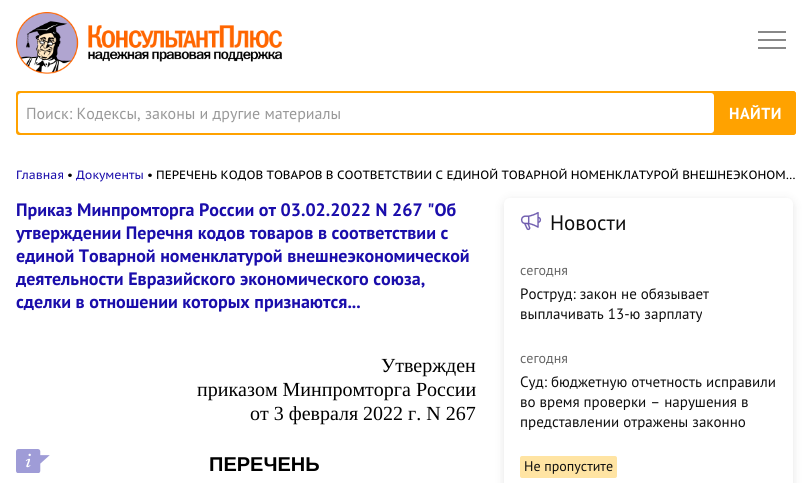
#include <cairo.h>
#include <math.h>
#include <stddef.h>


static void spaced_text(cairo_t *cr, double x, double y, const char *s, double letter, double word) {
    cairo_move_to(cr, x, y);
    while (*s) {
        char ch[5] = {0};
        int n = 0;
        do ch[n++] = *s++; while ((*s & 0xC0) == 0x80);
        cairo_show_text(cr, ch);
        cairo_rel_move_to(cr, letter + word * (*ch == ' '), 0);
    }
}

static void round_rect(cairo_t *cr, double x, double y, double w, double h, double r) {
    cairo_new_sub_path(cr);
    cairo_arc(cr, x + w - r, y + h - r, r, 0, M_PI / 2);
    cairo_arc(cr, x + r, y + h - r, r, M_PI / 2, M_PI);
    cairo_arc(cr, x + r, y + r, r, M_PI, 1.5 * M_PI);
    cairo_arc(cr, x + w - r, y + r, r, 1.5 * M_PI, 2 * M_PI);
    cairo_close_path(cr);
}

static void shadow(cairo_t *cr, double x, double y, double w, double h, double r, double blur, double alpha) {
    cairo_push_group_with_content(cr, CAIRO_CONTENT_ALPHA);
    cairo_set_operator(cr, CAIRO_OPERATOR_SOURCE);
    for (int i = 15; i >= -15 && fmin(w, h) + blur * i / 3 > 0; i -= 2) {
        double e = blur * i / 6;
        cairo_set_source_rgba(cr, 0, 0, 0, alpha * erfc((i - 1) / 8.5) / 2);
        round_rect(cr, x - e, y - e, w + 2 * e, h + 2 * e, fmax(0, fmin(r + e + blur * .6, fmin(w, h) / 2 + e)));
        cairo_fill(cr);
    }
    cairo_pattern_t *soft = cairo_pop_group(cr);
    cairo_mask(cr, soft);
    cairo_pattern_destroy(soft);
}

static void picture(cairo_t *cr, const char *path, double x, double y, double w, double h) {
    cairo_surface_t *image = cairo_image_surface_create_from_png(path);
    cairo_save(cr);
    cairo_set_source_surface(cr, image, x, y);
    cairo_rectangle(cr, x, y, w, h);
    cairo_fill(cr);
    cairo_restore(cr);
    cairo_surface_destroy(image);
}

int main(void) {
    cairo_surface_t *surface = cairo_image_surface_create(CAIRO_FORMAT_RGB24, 812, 483);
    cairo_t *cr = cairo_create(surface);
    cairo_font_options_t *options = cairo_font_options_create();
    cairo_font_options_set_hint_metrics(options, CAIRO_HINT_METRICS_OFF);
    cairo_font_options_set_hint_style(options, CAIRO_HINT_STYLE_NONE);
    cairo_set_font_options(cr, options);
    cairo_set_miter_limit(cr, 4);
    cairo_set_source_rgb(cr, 1, 1, 1);
    cairo_paint(cr);
    picture(cr, "img1.png", 16, 12, 266, 62);
    picture(cr, "img2.png", 758, 31, 28, 18);
    cairo_set_source_rgb(cr, 1, 0.635, 0);
    round_rect(cr, 16, 91, 780, 44, 3);
    cairo_fill(cr);
    cairo_set_source_rgb(cr, 1, 1, 1);
    round_rect(cr, 18, 93, 696, 40, 3);
    cairo_fill(cr);
    cairo_select_font_face(cr, "PT Sans", CAIRO_FONT_SLANT_NORMAL, CAIRO_FONT_WEIGHT_NORMAL);
    cairo_set_font_size(cr, 16);
    cairo_set_source_rgb(cr, 0.6, 0.6, 0.6);
    cairo_move_to(cr, 26, 119);
    cairo_show_text(cr, "Поиск: Кодексы, законы и другие материалы");
    cairo_set_source_rgb(cr, 1, 0.635, 0);
    round_rect(cr, 714, 91, 82, 44, 3);
    cairo_fill(cr);
    cairo_select_font_face(cr, "PT Sans", CAIRO_FONT_SLANT_NORMAL, CAIRO_FONT_WEIGHT_BOLD);
    cairo_set_source_rgb(cr, 1, 1, 1);
    spaced_text(cr, 729, 119, "НАЙТИ", 0.5, 0);
    cairo_select_font_face(cr, "PT Sans Caption", CAIRO_FONT_SLANT_NORMAL, CAIRO_FONT_WEIGHT_NORMAL);
    cairo_set_font_size(cr, 12);
    cairo_set_source_rgb(cr, 0.102, 0.051, 0.671);
    cairo_move_to(cr, 16, 179);
    cairo_show_text(cr, "Главная");
    cairo_set_source_rgb(cr, 0, 0, 0);
    cairo_move_to(cr, 67, 179);
    cairo_show_text(cr, "•");
    cairo_set_source_rgb(cr, 0.102, 0.051, 0.671);
    cairo_move_to(cr, 76, 179);
    cairo_show_text(cr, "Документы");
    cairo_set_source_rgb(cr, 0, 0, 0);
    cairo_move_to(cr, 147, 179);
    cairo_show_text(cr, "•");
    cairo_move_to(cr, 156, 179);
    cairo_show_text(cr, "ПЕРЕЧЕНЬ КОДОВ ТОВАРОВ В СООТВЕТСТВИИ С ЕДИНОЙ ТОВАРНОЙ НОМЕНКЛАТУРОЙ ВНЕШНЕЭКОНОМ…");
    cairo_select_font_face(cr, "PT Sans", CAIRO_FONT_SLANT_NORMAL, CAIRO_FONT_WEIGHT_BOLD);
    cairo_set_font_size(cr, 18);
    cairo_set_source_rgb(cr, 0.102, 0.051, 0.671);
    cairo_move_to(cr, 16, 216);
    cairo_show_text(cr, "Приказ Минпромторга России от 03.02.2022 N 267 \"Об");
    cairo_move_to(cr, 16, 239);
    cairo_show_text(cr, "утверждении Перечня кодов товаров в соответствии с");
    cairo_move_to(cr, 16, 262);
    cairo_show_text(cr, "единой Товарной номенклатурой внешнеэкономической");
    cairo_move_to(cr, 16, 285);
    cairo_show_text(cr, "деятельности Евразийского экономического союза,");
    cairo_move_to(cr, 16, 308);
    cairo_show_text(cr, "сделки в отношении которых признаются...");
    cairo_select_font_face(cr, "Liberation Serif", CAIRO_FONT_SLANT_NORMAL, CAIRO_FONT_WEIGHT_NORMAL);
    cairo_set_font_size(cr, 20);
    cairo_set_source_rgb(cr, 0, 0, 0);
    cairo_move_to(cr, 381, 372);
    cairo_show_text(cr, "Утвержден");
    cairo_move_to(cr, 197, 396);
    cairo_show_text(cr, "приказом Минпромторга России");
    cairo_move_to(cr, 250, 420);
    cairo_show_text(cr, "от 3 февраля 2022 г. N 267");
    picture(cr, "img3.png", 16, 449, 34, 24);
    cairo_select_font_face(cr, "Liberation Sans", CAIRO_FONT_SLANT_NORMAL, CAIRO_FONT_WEIGHT_BOLD);
    cairo_move_to(cr, 209, 471);
    cairo_show_text(cr, "ПЕРЕЧЕНЬ");
    cairo_set_source_rgb(cr, 0.157, 0.153, 0.165);
    shadow(cr, 504, 200, 289, 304, 6, 5, 0.12);
    cairo_set_source_rgb(cr, 1, 1, 1);
    round_rect(cr, 504, 198, 289, 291, 6);
    cairo_fill(cr);
    picture(cr, "img4.png", 520, 212, 22, 19);
    cairo_select_font_face(cr, "PT Sans", CAIRO_FONT_SLANT_NORMAL, CAIRO_FONT_WEIGHT_NORMAL);
    cairo_set_font_size(cr, 21);
    cairo_set_source_rgb(cr, 0.055, 0.055, 0.055);
    cairo_move_to(cr, 550, 230);
    cairo_show_text(cr, "Новости");
    cairo_set_font_size(cr, 14);
    cairo_set_source_rgb(cr, 0.4, 0.4, 0.4);
    cairo_move_to(cr, 520, 275);
    cairo_show_text(cr, "сегодня");
    cairo_set_font_size(cr, 15);
    cairo_set_source_rgb(cr, 0.055, 0.055, 0.055);
    cairo_move_to(cr, 520, 299);
    cairo_show_text(cr, "Роструд: закон не обязывает");
    cairo_move_to(cr, 520, 319);
    cairo_show_text(cr, "выплачивать 13-ю зарплату");
    cairo_set_font_size(cr, 14);
    cairo_set_source_rgb(cr, 0.4, 0.4, 0.4);
    cairo_move_to(cr, 520, 363);
    cairo_show_text(cr, "сегодня");
    cairo_set_font_size(cr, 15);
    cairo_set_source_rgb(cr, 0.055, 0.055, 0.055);
    cairo_move_to(cr, 520, 387);
    cairo_show_text(cr, "Суд: бюджетную отчетность исправили");
    cairo_move_to(cr, 520, 407);
    cairo_show_text(cr, "во время проверки – нарушения в");
    cairo_move_to(cr, 520, 427);
    cairo_show_text(cr, "представлении отражены законно");
    cairo_set_source_rgb(cr, 1, 0.894, 0.639);
    round_rect(cr, 520, 456, 97, 22, 2);
    cairo_fill(cr);
    cairo_set_font_size(cr, 14);
    cairo_set_source_rgb(cr, 0.055, 0.055, 0.055);
    cairo_move_to(cr, 524, 471);
    cairo_show_text(cr, "Не пропустите");
    cairo_surface_write_to_png(surface, "page.png");
    cairo_font_options_destroy(options);
    cairo_destroy(cr);
    cairo_surface_destroy(surface);
    return 0;
}
